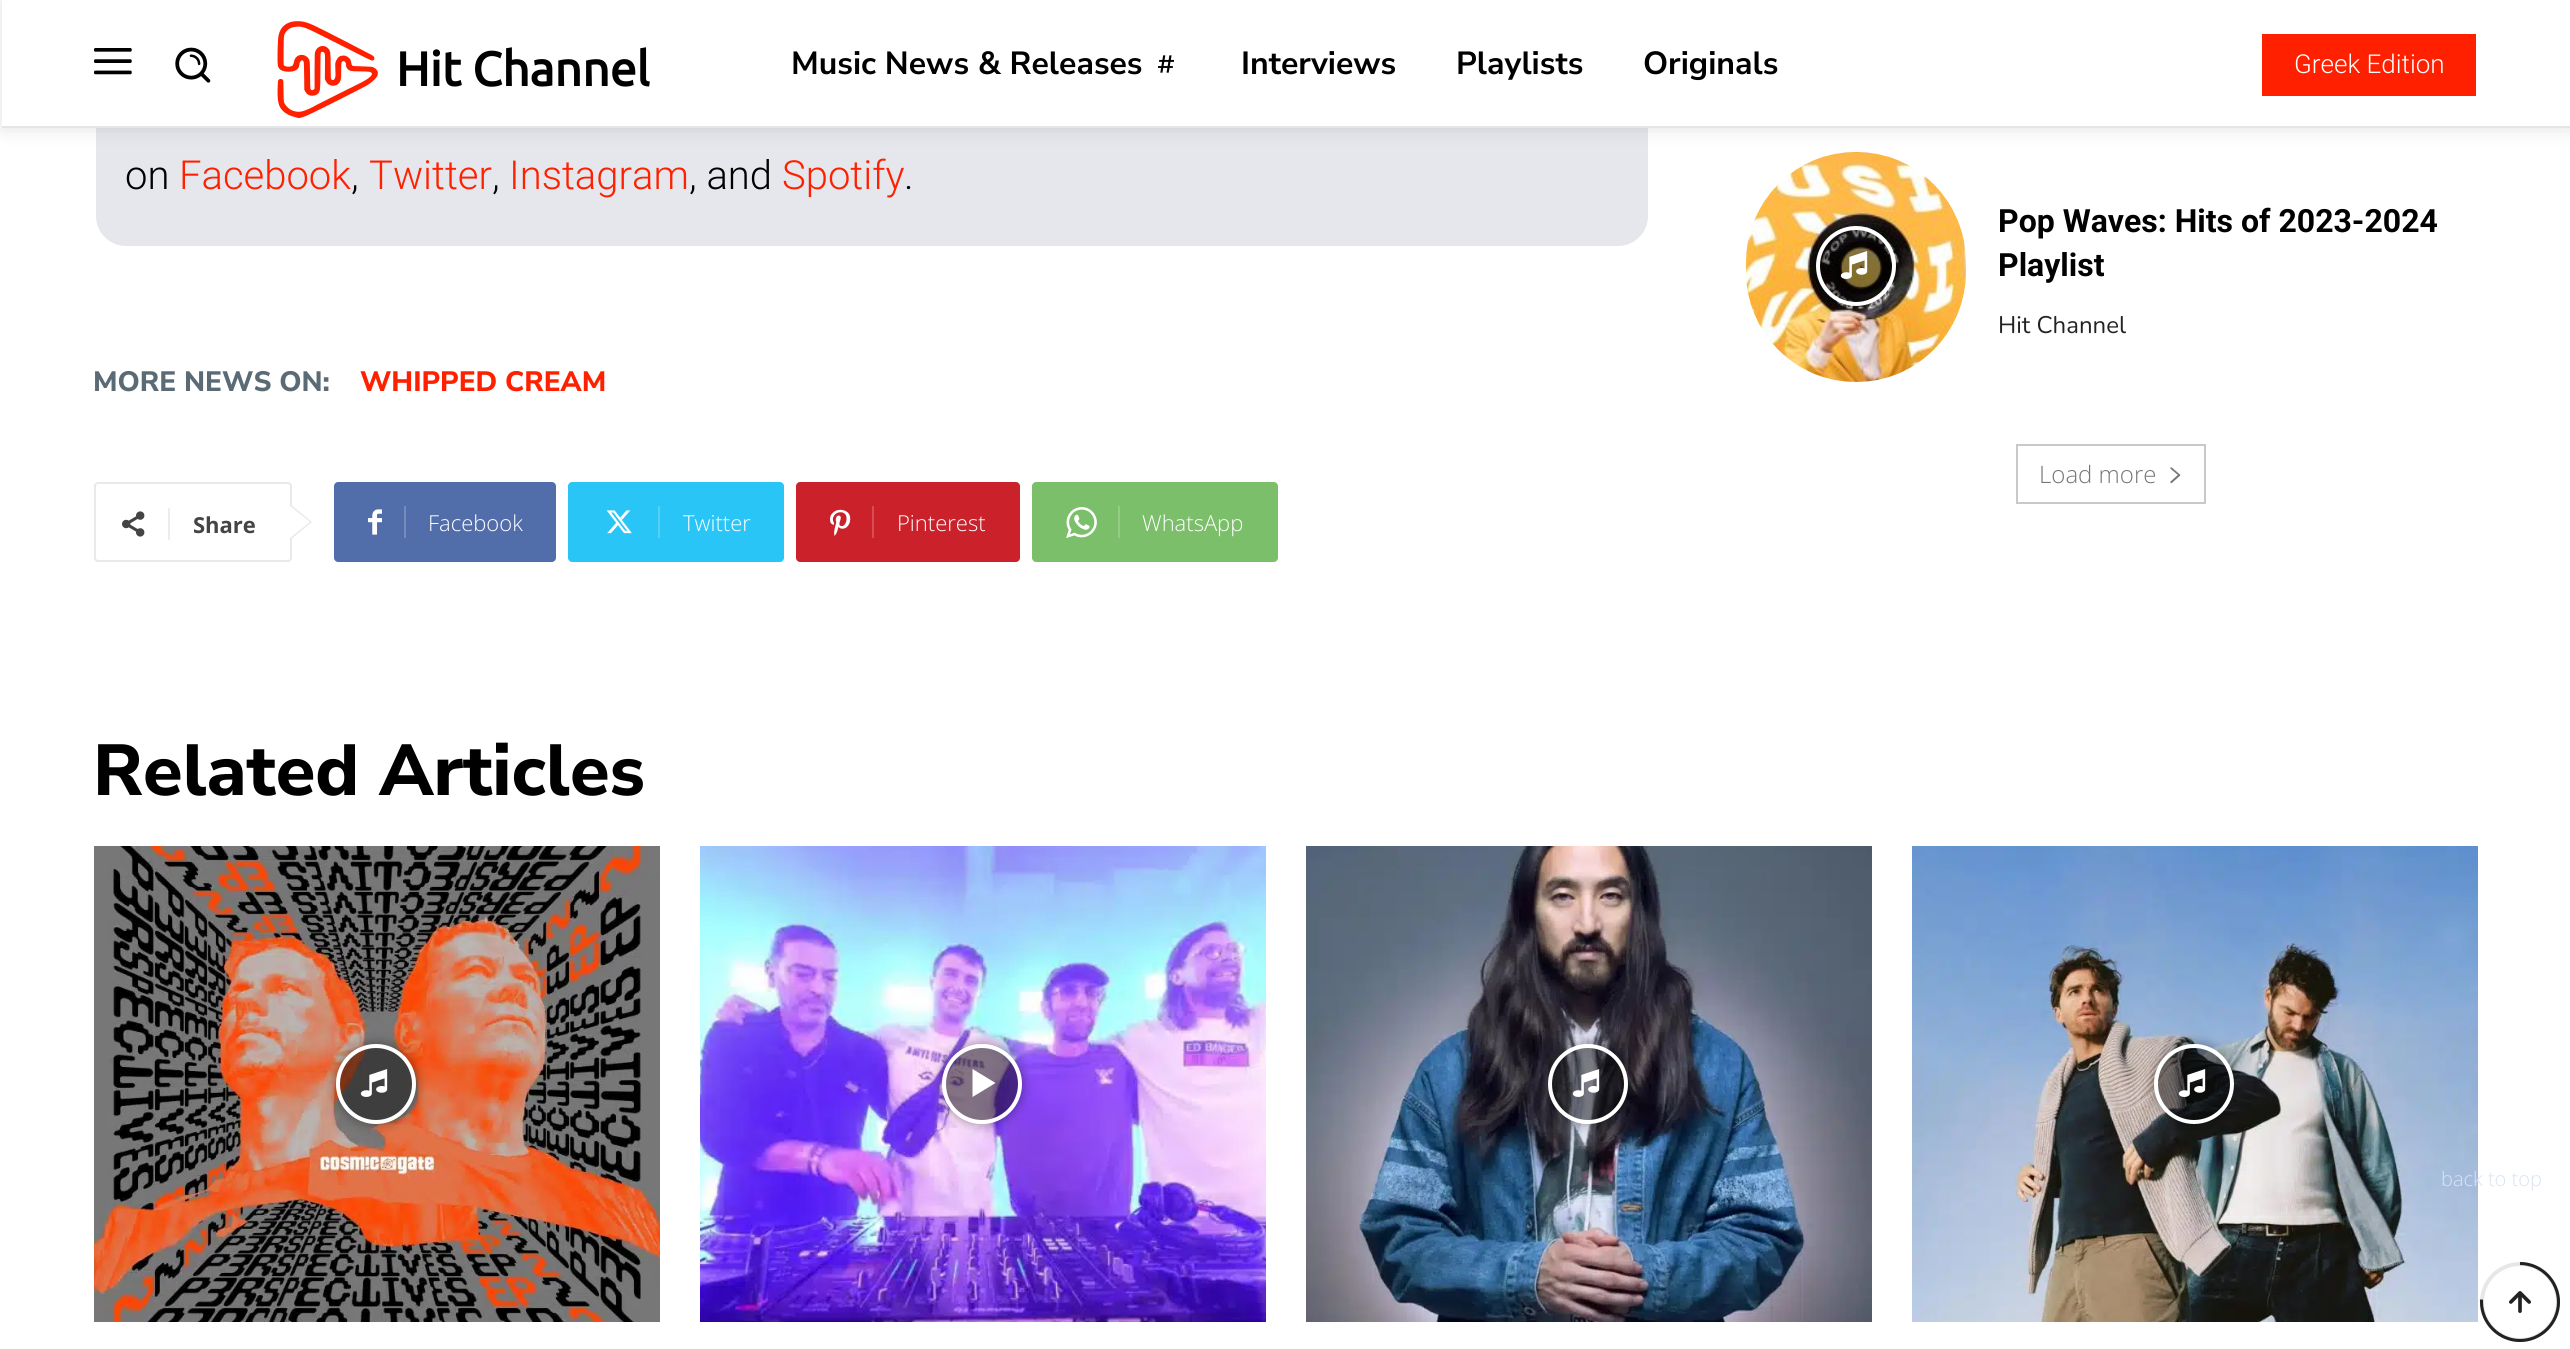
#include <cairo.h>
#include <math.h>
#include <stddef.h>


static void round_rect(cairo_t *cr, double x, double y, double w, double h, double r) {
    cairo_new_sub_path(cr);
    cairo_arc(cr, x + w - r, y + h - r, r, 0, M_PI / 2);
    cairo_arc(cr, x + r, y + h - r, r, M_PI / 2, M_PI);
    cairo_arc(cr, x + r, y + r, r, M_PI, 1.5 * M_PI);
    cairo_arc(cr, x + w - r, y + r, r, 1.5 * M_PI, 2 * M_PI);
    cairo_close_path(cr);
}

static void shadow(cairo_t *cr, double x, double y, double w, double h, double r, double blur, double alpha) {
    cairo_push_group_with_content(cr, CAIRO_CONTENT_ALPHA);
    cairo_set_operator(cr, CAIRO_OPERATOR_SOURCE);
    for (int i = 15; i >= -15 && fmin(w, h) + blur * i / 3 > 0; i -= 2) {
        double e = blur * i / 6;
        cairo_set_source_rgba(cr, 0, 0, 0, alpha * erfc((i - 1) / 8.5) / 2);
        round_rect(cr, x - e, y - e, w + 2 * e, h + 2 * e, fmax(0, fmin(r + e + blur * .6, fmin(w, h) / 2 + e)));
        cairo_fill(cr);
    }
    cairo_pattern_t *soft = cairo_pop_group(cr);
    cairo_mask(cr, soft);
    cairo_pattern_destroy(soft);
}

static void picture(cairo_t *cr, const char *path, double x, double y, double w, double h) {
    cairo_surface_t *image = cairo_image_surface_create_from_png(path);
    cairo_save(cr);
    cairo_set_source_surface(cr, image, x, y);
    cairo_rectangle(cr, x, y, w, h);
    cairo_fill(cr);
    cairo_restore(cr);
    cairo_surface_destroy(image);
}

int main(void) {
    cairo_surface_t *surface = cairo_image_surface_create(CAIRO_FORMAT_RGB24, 2570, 1349);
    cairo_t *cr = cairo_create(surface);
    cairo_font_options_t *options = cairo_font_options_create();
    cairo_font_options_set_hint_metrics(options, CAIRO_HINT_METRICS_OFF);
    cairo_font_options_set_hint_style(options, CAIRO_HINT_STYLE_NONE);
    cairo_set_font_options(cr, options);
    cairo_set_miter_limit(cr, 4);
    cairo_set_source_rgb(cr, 1, 1, 1);
    cairo_paint(cr);
    cairo_set_source_rgb(cr, 0.898, 0.906, 0.922);
    round_rect(cr, 96, -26, 1552, 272, 30);
    cairo_fill(cr);
    cairo_set_source_rgb(cr, 1, 1, 1);
    cairo_rectangle(cr, 96, 0, 1552, 128);
    cairo_fill(cr);
    picture(cr, "img1.png", 94, 48, 38, 27);
    picture(cr, "img3.png", 277, 21, 101, 98);
    cairo_set_source_rgb(cr, 1, 0.125, 0);
    cairo_rectangle(cr, 2262, 34, 214, 62);
    cairo_fill(cr);
    cairo_set_source_rgb(cr, 0.898, 0.898, 0.898);
    cairo_rectangle(cr, 2, 126, 2568, 2);
    cairo_fill(cr);
    picture(cr, "img10.png", 1746, 152, 220, 230);
    cairo_save(cr);
    cairo_set_fill_rule(cr, CAIRO_FILL_RULE_EVEN_ODD);
    cairo_new_path(cr);
    cairo_move_to(cr, 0, 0);
    cairo_line_to(cr, 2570, 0);
    cairo_line_to(cr, 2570, 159);
    cairo_line_to(cr, 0, 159);
    cairo_close_path(cr);
    cairo_move_to(cr, 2, 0);
    cairo_line_to(cr, 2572, 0);
    cairo_line_to(cr, 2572, 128);
    cairo_line_to(cr, 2, 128);
    cairo_close_path(cr);
    cairo_clip(cr);
    cairo_set_source_rgb(cr, 0, 0, 0);
    shadow(cr, 2, 0, 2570, 128, 0, 10, 0.12);
    cairo_restore(cr);
    picture(cr, "img2.png", 175, 47, 36, 36);
    cairo_select_font_face(cr, "Ubuntu", CAIRO_FONT_SLANT_NORMAL, CAIRO_FONT_WEIGHT_BOLD);
    cairo_set_font_size(cr, 48);
    cairo_set_source_rgb(cr, 0, 0, 0);
    cairo_move_to(cr, 396, 86);
    cairo_show_text(cr, "Hit Channel");
    cairo_select_font_face(cr, "Nunito Sans", CAIRO_FONT_SLANT_NORMAL, CAIRO_FONT_WEIGHT_BOLD);
    cairo_set_font_size(cr, 32);
    cairo_move_to(cr, 791, 74);
    cairo_show_text(cr, "Music News & Releases");
    picture(cr, "img4.png", 1158, 55, 16, 18);
    cairo_move_to(cr, 1241, 74);
    cairo_show_text(cr, "Interviews");
    cairo_move_to(cr, 1456, 74);
    cairo_show_text(cr, "Playlists");
    cairo_move_to(cr, 1643, 74);
    cairo_show_text(cr, "Originals");
    cairo_select_font_face(cr, "Roboto Light", CAIRO_FONT_SLANT_NORMAL, CAIRO_FONT_WEIGHT_NORMAL);
    cairo_set_font_size(cr, 26);
    cairo_set_source_rgb(cr, 1, 1, 1);
    cairo_move_to(cr, 2294, 73);
    cairo_show_text(cr, "Greek Edition");
    cairo_set_font_size(cr, 40);
    cairo_set_source_rgb(cr, 0, 0, 0);
    cairo_move_to(cr, 125, 189);
    cairo_show_text(cr, "on");
    cairo_set_source_rgb(cr, 1, 0.125, 0);
    cairo_move_to(cr, 179, 189);
    cairo_show_text(cr, "Facebook");
    cairo_set_source_rgb(cr, 0, 0, 0);
    cairo_move_to(cr, 351, 189);
    cairo_show_text(cr, ",");
    cairo_set_source_rgb(cr, 1, 0.125, 0);
    cairo_move_to(cr, 369, 189);
    cairo_show_text(cr, "Twitter");
    cairo_set_source_rgb(cr, 0, 0, 0);
    cairo_move_to(cr, 492, 189);
    cairo_show_text(cr, ",");
    cairo_set_source_rgb(cr, 1, 0.125, 0);
    cairo_move_to(cr, 509, 189);
    cairo_show_text(cr, "Instagram");
    cairo_set_source_rgb(cr, 0, 0, 0);
    cairo_move_to(cr, 689, 189);
    cairo_show_text(cr, ", and");
    cairo_set_source_rgb(cr, 1, 0.125, 0);
    cairo_move_to(cr, 782, 189);
    cairo_show_text(cr, "Spotify");
    cairo_set_source_rgb(cr, 0, 0, 0);
    cairo_move_to(cr, 904, 189);
    cairo_show_text(cr, ".");
    cairo_select_font_face(cr, "Nunito Sans ExtraBold", CAIRO_FONT_SLANT_NORMAL, CAIRO_FONT_WEIGHT_NORMAL);
    cairo_set_font_size(cr, 28);
    cairo_set_source_rgb(cr, 0.357, 0.42, 0.459);
    cairo_move_to(cr, 93, 391);
    cairo_show_text(cr, "MORE NEWS ON:");
    cairo_set_source_rgb(cr, 1, 0.125, 0);
    cairo_move_to(cr, 360, 391);
    cairo_show_text(cr, "WHIPPED CREAM");
    round_rect(cr, 95, 483, 196, 78, 3);
    cairo_set_source_rgb(cr, 0.914, 0.914, 0.914);
    cairo_stroke(cr);
    cairo_new_path(cr);
    cairo_move_to(cr, 290, 540);
    cairo_line_to(cr, 290, 504);
    cairo_line_to(cr, 312, 522);
    cairo_close_path(cr);
    cairo_fill(cr);
    picture(cr, "img5.png", 122, 511, 23, 26);
    cairo_set_source_rgb(cr, 0.922, 0.922, 0.922);
    cairo_rectangle(cr, 168, 508, 2, 32);
    cairo_fill(cr);
    cairo_select_font_face(cr, "Open Sans", CAIRO_FONT_SLANT_NORMAL, CAIRO_FONT_WEIGHT_BOLD);
    cairo_set_font_size(cr, 22);
    cairo_set_source_rgb(cr, 0.267, 0.267, 0.267);
    cairo_move_to(cr, 193, 533);
    cairo_show_text(cr, "Share");
    cairo_set_source_rgb(cr, 1, 1, 1);
    cairo_new_path(cr);
    cairo_move_to(cr, 290, 538);
    cairo_line_to(cr, 290, 506);
    cairo_line_to(cr, 310, 522);
    cairo_close_path(cr);
    cairo_fill(cr);
    cairo_set_source_rgb(cr, 0.318, 0.431, 0.671);
    cairo_new_path(cr);
    cairo_move_to(cr, 404, 482);
    cairo_line_to(cr, 552, 482);
    cairo_curve_to(cr, 554, 482, 556, 484, 556, 486);
    cairo_line_to(cr, 556, 558);
    cairo_curve_to(cr, 556, 560, 554, 562, 552, 562);
    cairo_line_to(cr, 404, 562);
    cairo_close_path(cr);
    cairo_fill(cr);
    cairo_new_path(cr);
    cairo_move_to(cr, 338, 482);
    cairo_line_to(cr, 416, 482);
    cairo_line_to(cr, 416, 562);
    cairo_line_to(cr, 338, 562);
    cairo_curve_to(cr, 336, 562, 334, 560, 334, 558);
    cairo_line_to(cr, 334, 486);
    cairo_curve_to(cr, 334, 484, 336, 482, 338, 482);
    cairo_close_path(cr);
    cairo_fill(cr);
    picture(cr, "img6.png", 368, 509, 14, 26);
    cairo_set_source_rgb(cr, 0.455, 0.545, 0.737);
    cairo_rectangle(cr, 404, 506, 2, 32);
    cairo_fill(cr);
    cairo_select_font_face(cr, "Open Sans Light", CAIRO_FONT_SLANT_NORMAL, CAIRO_FONT_WEIGHT_NORMAL);
    cairo_set_source_rgb(cr, 1, 1, 1);
    cairo_move_to(cr, 428, 531);
    cairo_show_text(cr, "Facebook");
    cairo_set_source_rgb(cr, 0.161, 0.773, 0.965);
    cairo_new_path(cr);
    cairo_move_to(cr, 658, 482);
    cairo_line_to(cr, 780, 482);
    cairo_curve_to(cr, 782, 482, 784, 484, 784, 486);
    cairo_line_to(cr, 784, 558);
    cairo_curve_to(cr, 784, 560, 782, 562, 780, 562);
    cairo_line_to(cr, 658, 562);
    cairo_close_path(cr);
    cairo_fill(cr);
    cairo_new_path(cr);
    cairo_move_to(cr, 572, 482);
    cairo_line_to(cr, 670, 482);
    cairo_line_to(cr, 670, 562);
    cairo_line_to(cr, 572, 562);
    cairo_curve_to(cr, 570, 562, 568, 560, 568, 558);
    cairo_line_to(cr, 568, 486);
    cairo_curve_to(cr, 568, 484, 570, 482, 572, 482);
    cairo_close_path(cr);
    cairo_fill(cr);
    picture(cr, "img7.png", 606, 510, 26, 24);
    cairo_set_source_rgb(cr, 0.329, 0.82, 0.973);
    cairo_rectangle(cr, 658, 506, 2, 32);
    cairo_fill(cr);
    cairo_set_source_rgb(cr, 1, 1, 1);
    cairo_move_to(cr, 683, 531);
    cairo_show_text(cr, "Twitter");
    cairo_set_source_rgb(cr, 0.792, 0.129, 0.165);
    cairo_new_path(cr);
    cairo_move_to(cr, 872, 482);
    cairo_line_to(cr, 1016, 482);
    cairo_curve_to(cr, 1018, 482, 1020, 484, 1020, 486);
    cairo_line_to(cr, 1020, 558);
    cairo_curve_to(cr, 1020, 560, 1018, 562, 1016, 562);
    cairo_line_to(cr, 872, 562);
    cairo_close_path(cr);
    cairo_fill(cr);
    cairo_new_path(cr);
    cairo_move_to(cr, 800, 482);
    cairo_line_to(cr, 884, 482);
    cairo_line_to(cr, 884, 562);
    cairo_line_to(cr, 800, 562);
    cairo_curve_to(cr, 798, 562, 796, 560, 796, 558);
    cairo_line_to(cr, 796, 486);
    cairo_curve_to(cr, 796, 484, 798, 482, 800, 482);
    cairo_close_path(cr);
    cairo_fill(cr);
    picture(cr, "img8.png", 830, 509, 21, 27);
    cairo_set_source_rgb(cr, 0.835, 0.302, 0.333);
    cairo_rectangle(cr, 872, 506, 2, 32);
    cairo_fill(cr);
    cairo_set_source_rgb(cr, 1, 1, 1);
    cairo_move_to(cr, 897, 531);
    cairo_show_text(cr, "Pinterest");
    cairo_set_source_rgb(cr, 0.482, 0.749, 0.416);
    cairo_new_path(cr);
    cairo_move_to(cr, 1118, 482);
    cairo_line_to(cr, 1274, 482);
    cairo_curve_to(cr, 1276, 482, 1278, 484, 1278, 486);
    cairo_line_to(cr, 1278, 558);
    cairo_curve_to(cr, 1278, 560, 1276, 562, 1274, 562);
    cairo_line_to(cr, 1118, 562);
    cairo_close_path(cr);
    cairo_fill(cr);
    cairo_new_path(cr);
    cairo_move_to(cr, 1036, 482);
    cairo_line_to(cr, 1130, 482);
    cairo_line_to(cr, 1130, 562);
    cairo_line_to(cr, 1036, 562);
    cairo_curve_to(cr, 1034, 562, 1032, 560, 1032, 558);
    cairo_line_to(cr, 1032, 486);
    cairo_curve_to(cr, 1032, 484, 1034, 482, 1036, 482);
    cairo_close_path(cr);
    cairo_fill(cr);
    picture(cr, "img9.png", 1066, 507, 31, 31);
    cairo_set_source_rgb(cr, 0.584, 0.8, 0.533);
    cairo_rectangle(cr, 1118, 506, 2, 32);
    cairo_fill(cr);
    cairo_set_source_rgb(cr, 1, 1, 1);
    cairo_move_to(cr, 1142, 531);
    cairo_show_text(cr, "WhatsApp");
    cairo_save(cr);
    cairo_set_fill_rule(cr, CAIRO_FILL_RULE_EVEN_ODD);
    cairo_new_path(cr);
    cairo_move_to(cr, 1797, 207);
    cairo_line_to(cr, 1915, 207);
    cairo_line_to(cr, 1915, 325);
    cairo_line_to(cr, 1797, 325);
    cairo_close_path(cr);
    cairo_move_to(cr, 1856, 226);
    cairo_curve_to(cr, 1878, 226, 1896, 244, 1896, 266);
    cairo_curve_to(cr, 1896, 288, 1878, 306, 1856, 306);
    cairo_curve_to(cr, 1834, 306, 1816, 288, 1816, 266);
    cairo_curve_to(cr, 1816, 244, 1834, 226, 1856, 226);
    cairo_close_path(cr);
    cairo_clip(cr);
    cairo_set_source_rgb(cr, 0, 0, 0);
    shadow(cr, 1816, 226, 80, 80, 40, 6, 0.4);
    cairo_restore(cr);
    cairo_set_source_rgba(cr, 0, 0, 0, 0.48);
    cairo_arc(cr, 1856, 266, 38, 0, 2 * M_PI);
    cairo_fill_preserve(cr);
    cairo_set_source_rgb(cr, 1, 1, 1);
    cairo_set_line_width(cr, 4);
    cairo_stroke(cr);
    picture(cr, "img11.png", 1840, 251, 28, 28);
    cairo_select_font_face(cr, "Roboto", CAIRO_FONT_SLANT_NORMAL, CAIRO_FONT_WEIGHT_BOLD);
    cairo_set_font_size(cr, 32);
    cairo_set_source_rgb(cr, 0, 0, 0);
    cairo_move_to(cr, 1998, 232);
    cairo_show_text(cr, "Pop Waves: Hits of 2023-2024");
    cairo_move_to(cr, 1998, 276);
    cairo_show_text(cr, "Playlist");
    cairo_select_font_face(cr, "Nunito ExtraLight", CAIRO_FONT_SLANT_NORMAL, CAIRO_FONT_WEIGHT_NORMAL);
    cairo_set_font_size(cr, 24);
    cairo_set_source_rgb(cr, 0.137, 0.137, 0.137);
    cairo_move_to(cr, 1998, 333);
    cairo_show_text(cr, "Hit Channel");
    cairo_rectangle(cr, 2017, 445, 188, 58);
    cairo_set_source_rgb(cr, 0.788, 0.788, 0.788);
    cairo_set_line_width(cr, 2);
    cairo_stroke(cr);
    cairo_select_font_face(cr, "Open Sans Light", CAIRO_FONT_SLANT_NORMAL, CAIRO_FONT_WEIGHT_NORMAL);
    cairo_set_source_rgb(cr, 0.463, 0.463, 0.463);
    cairo_move_to(cr, 2039, 483);
    cairo_show_text(cr, "Load more");
    picture(cr, "img12.png", 2170, 467, 11, 17);
    cairo_select_font_face(cr, "Nunito Sans ExtraBold", CAIRO_FONT_SLANT_NORMAL, CAIRO_FONT_WEIGHT_NORMAL);
    cairo_set_font_size(cr, 72);
    cairo_set_source_rgb(cr, 0, 0, 0);
    cairo_move_to(cr, 93, 795);
    cairo_show_text(cr, "Related Articles");
    picture(cr, "img13.png", 94, 846, 566, 476);
    cairo_save(cr);
    cairo_set_fill_rule(cr, CAIRO_FILL_RULE_EVEN_ODD);
    cairo_new_path(cr);
    cairo_move_to(cr, 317, 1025);
    cairo_line_to(cr, 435, 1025);
    cairo_line_to(cr, 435, 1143);
    cairo_line_to(cr, 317, 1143);
    cairo_close_path(cr);
    cairo_move_to(cr, 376, 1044);
    cairo_curve_to(cr, 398, 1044, 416, 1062, 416, 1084);
    cairo_curve_to(cr, 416, 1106, 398, 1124, 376, 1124);
    cairo_curve_to(cr, 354, 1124, 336, 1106, 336, 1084);
    cairo_curve_to(cr, 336, 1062, 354, 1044, 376, 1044);
    cairo_close_path(cr);
    cairo_clip(cr);
    cairo_set_source_rgb(cr, 0, 0, 0);
    shadow(cr, 336, 1044, 80, 80, 40, 6, 0.4);
    cairo_restore(cr);
    cairo_set_source_rgba(cr, 0, 0, 0, 0.48);
    cairo_arc(cr, 376, 1084, 38, 0, 2 * M_PI);
    cairo_fill_preserve(cr);
    cairo_set_source_rgb(cr, 1, 1, 1);
    cairo_set_line_width(cr, 4);
    cairo_stroke(cr);
    picture(cr, "img14.png", 360, 1069, 28, 28);
    picture(cr, "img15.png", 700, 846, 566, 476);
    cairo_save(cr);
    cairo_set_fill_rule(cr, CAIRO_FILL_RULE_EVEN_ODD);
    cairo_new_path(cr);
    cairo_move_to(cr, 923, 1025);
    cairo_line_to(cr, 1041, 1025);
    cairo_line_to(cr, 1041, 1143);
    cairo_line_to(cr, 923, 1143);
    cairo_close_path(cr);
    cairo_move_to(cr, 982, 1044);
    cairo_curve_to(cr, 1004, 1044, 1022, 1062, 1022, 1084);
    cairo_curve_to(cr, 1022, 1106, 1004, 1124, 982, 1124);
    cairo_curve_to(cr, 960, 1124, 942, 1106, 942, 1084);
    cairo_curve_to(cr, 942, 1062, 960, 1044, 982, 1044);
    cairo_close_path(cr);
    cairo_clip(cr);
    cairo_set_source_rgb(cr, 0, 0, 0);
    shadow(cr, 942, 1044, 80, 80, 40, 6, 0.4);
    cairo_restore(cr);
    cairo_set_source_rgba(cr, 0, 0, 0, 0.48);
    cairo_arc(cr, 982, 1084, 38, 0, 2 * M_PI);
    cairo_fill_preserve(cr);
    cairo_set_source_rgb(cr, 1, 1, 1);
    cairo_stroke(cr);
    cairo_new_path(cr);
    cairo_move_to(cr, 972.5, 1069);
    cairo_line_to(cr, 972.5, 1097);
    cairo_line_to(cr, 995.5, 1083);
    cairo_close_path(cr);
    cairo_fill(cr);
    picture(cr, "img16.png", 1306, 846, 566, 476);
    cairo_save(cr);
    cairo_set_fill_rule(cr, CAIRO_FILL_RULE_EVEN_ODD);
    cairo_new_path(cr);
    cairo_move_to(cr, 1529, 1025);
    cairo_line_to(cr, 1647, 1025);
    cairo_line_to(cr, 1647, 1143);
    cairo_line_to(cr, 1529, 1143);
    cairo_close_path(cr);
    cairo_move_to(cr, 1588, 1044);
    cairo_curve_to(cr, 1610, 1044, 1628, 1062, 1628, 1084);
    cairo_curve_to(cr, 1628, 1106, 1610, 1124, 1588, 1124);
    cairo_curve_to(cr, 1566, 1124, 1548, 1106, 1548, 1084);
    cairo_curve_to(cr, 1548, 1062, 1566, 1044, 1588, 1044);
    cairo_close_path(cr);
    cairo_clip(cr);
    cairo_set_source_rgb(cr, 0, 0, 0);
    shadow(cr, 1548, 1044, 80, 80, 40, 6, 0.4);
    cairo_restore(cr);
    cairo_set_source_rgba(cr, 0, 0, 0, 0.48);
    cairo_arc(cr, 1588, 1084, 38, 0, 2 * M_PI);
    cairo_fill_preserve(cr);
    cairo_set_source_rgb(cr, 1, 1, 1);
    cairo_stroke(cr);
    picture(cr, "img17.png", 1572, 1069, 28, 28);
    picture(cr, "img18.png", 1912, 846, 566, 476);
    cairo_save(cr);
    cairo_set_fill_rule(cr, CAIRO_FILL_RULE_EVEN_ODD);
    cairo_new_path(cr);
    cairo_move_to(cr, 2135, 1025);
    cairo_line_to(cr, 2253, 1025);
    cairo_line_to(cr, 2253, 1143);
    cairo_line_to(cr, 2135, 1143);
    cairo_close_path(cr);
    cairo_move_to(cr, 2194, 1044);
    cairo_curve_to(cr, 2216, 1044, 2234, 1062, 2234, 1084);
    cairo_curve_to(cr, 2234, 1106, 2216, 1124, 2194, 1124);
    cairo_curve_to(cr, 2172, 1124, 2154, 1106, 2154, 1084);
    cairo_curve_to(cr, 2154, 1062, 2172, 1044, 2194, 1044);
    cairo_close_path(cr);
    cairo_clip(cr);
    cairo_set_source_rgb(cr, 0, 0, 0);
    shadow(cr, 2154, 1044, 80, 80, 40, 6, 0.4);
    cairo_restore(cr);
    cairo_set_source_rgba(cr, 0, 0, 0, 0.48);
    cairo_arc(cr, 2194, 1084, 38, 0, 2 * M_PI);
    cairo_fill_preserve(cr);
    cairo_set_source_rgb(cr, 1, 1, 1);
    cairo_stroke(cr);
    picture(cr, "img19.png", 2178, 1069, 28, 28);
    cairo_arc(cr, 2520, 1302, 38, 0, 2 * M_PI);
    cairo_set_source_rgb(cr, 0.906, 0.906, 0.906);
    cairo_stroke(cr);
    cairo_select_font_face(cr, "Open Sans Light", CAIRO_FONT_SLANT_NORMAL, CAIRO_FONT_WEIGHT_NORMAL);
    cairo_set_font_size(cr, 20);
    cairo_set_source_rgb(cr, 0.855, 0.89, 0.941);
    cairo_move_to(cr, 2441, 1186);
    cairo_show_text(cr, "back to top");
    cairo_new_path(cr);
    cairo_move_to(cr, 2520, 1263.5);
    cairo_curve_to(cr, 2541, 1263.5, 2558.5, 1281, 2558.5, 1302);
    cairo_curve_to(cr, 2558.5, 1323, 2541, 1340.5, 2520, 1340.5);
    cairo_curve_to(cr, 2499, 1340.5, 2481.5, 1323, 2481.5, 1302);
    cairo_line_to(cr, 2481.5, 1299.5);
    cairo_set_source_rgb(cr, 0.133, 0.133, 0.133);
    cairo_set_line_width(cr, 3.1);
    cairo_stroke(cr);
    picture(cr, "img20.png", 2509, 1291, 22, 22);
    cairo_surface_write_to_png(surface, "page.png");
    cairo_font_options_destroy(options);
    cairo_destroy(cr);
    cairo_surface_destroy(surface);
    return 0;
}
